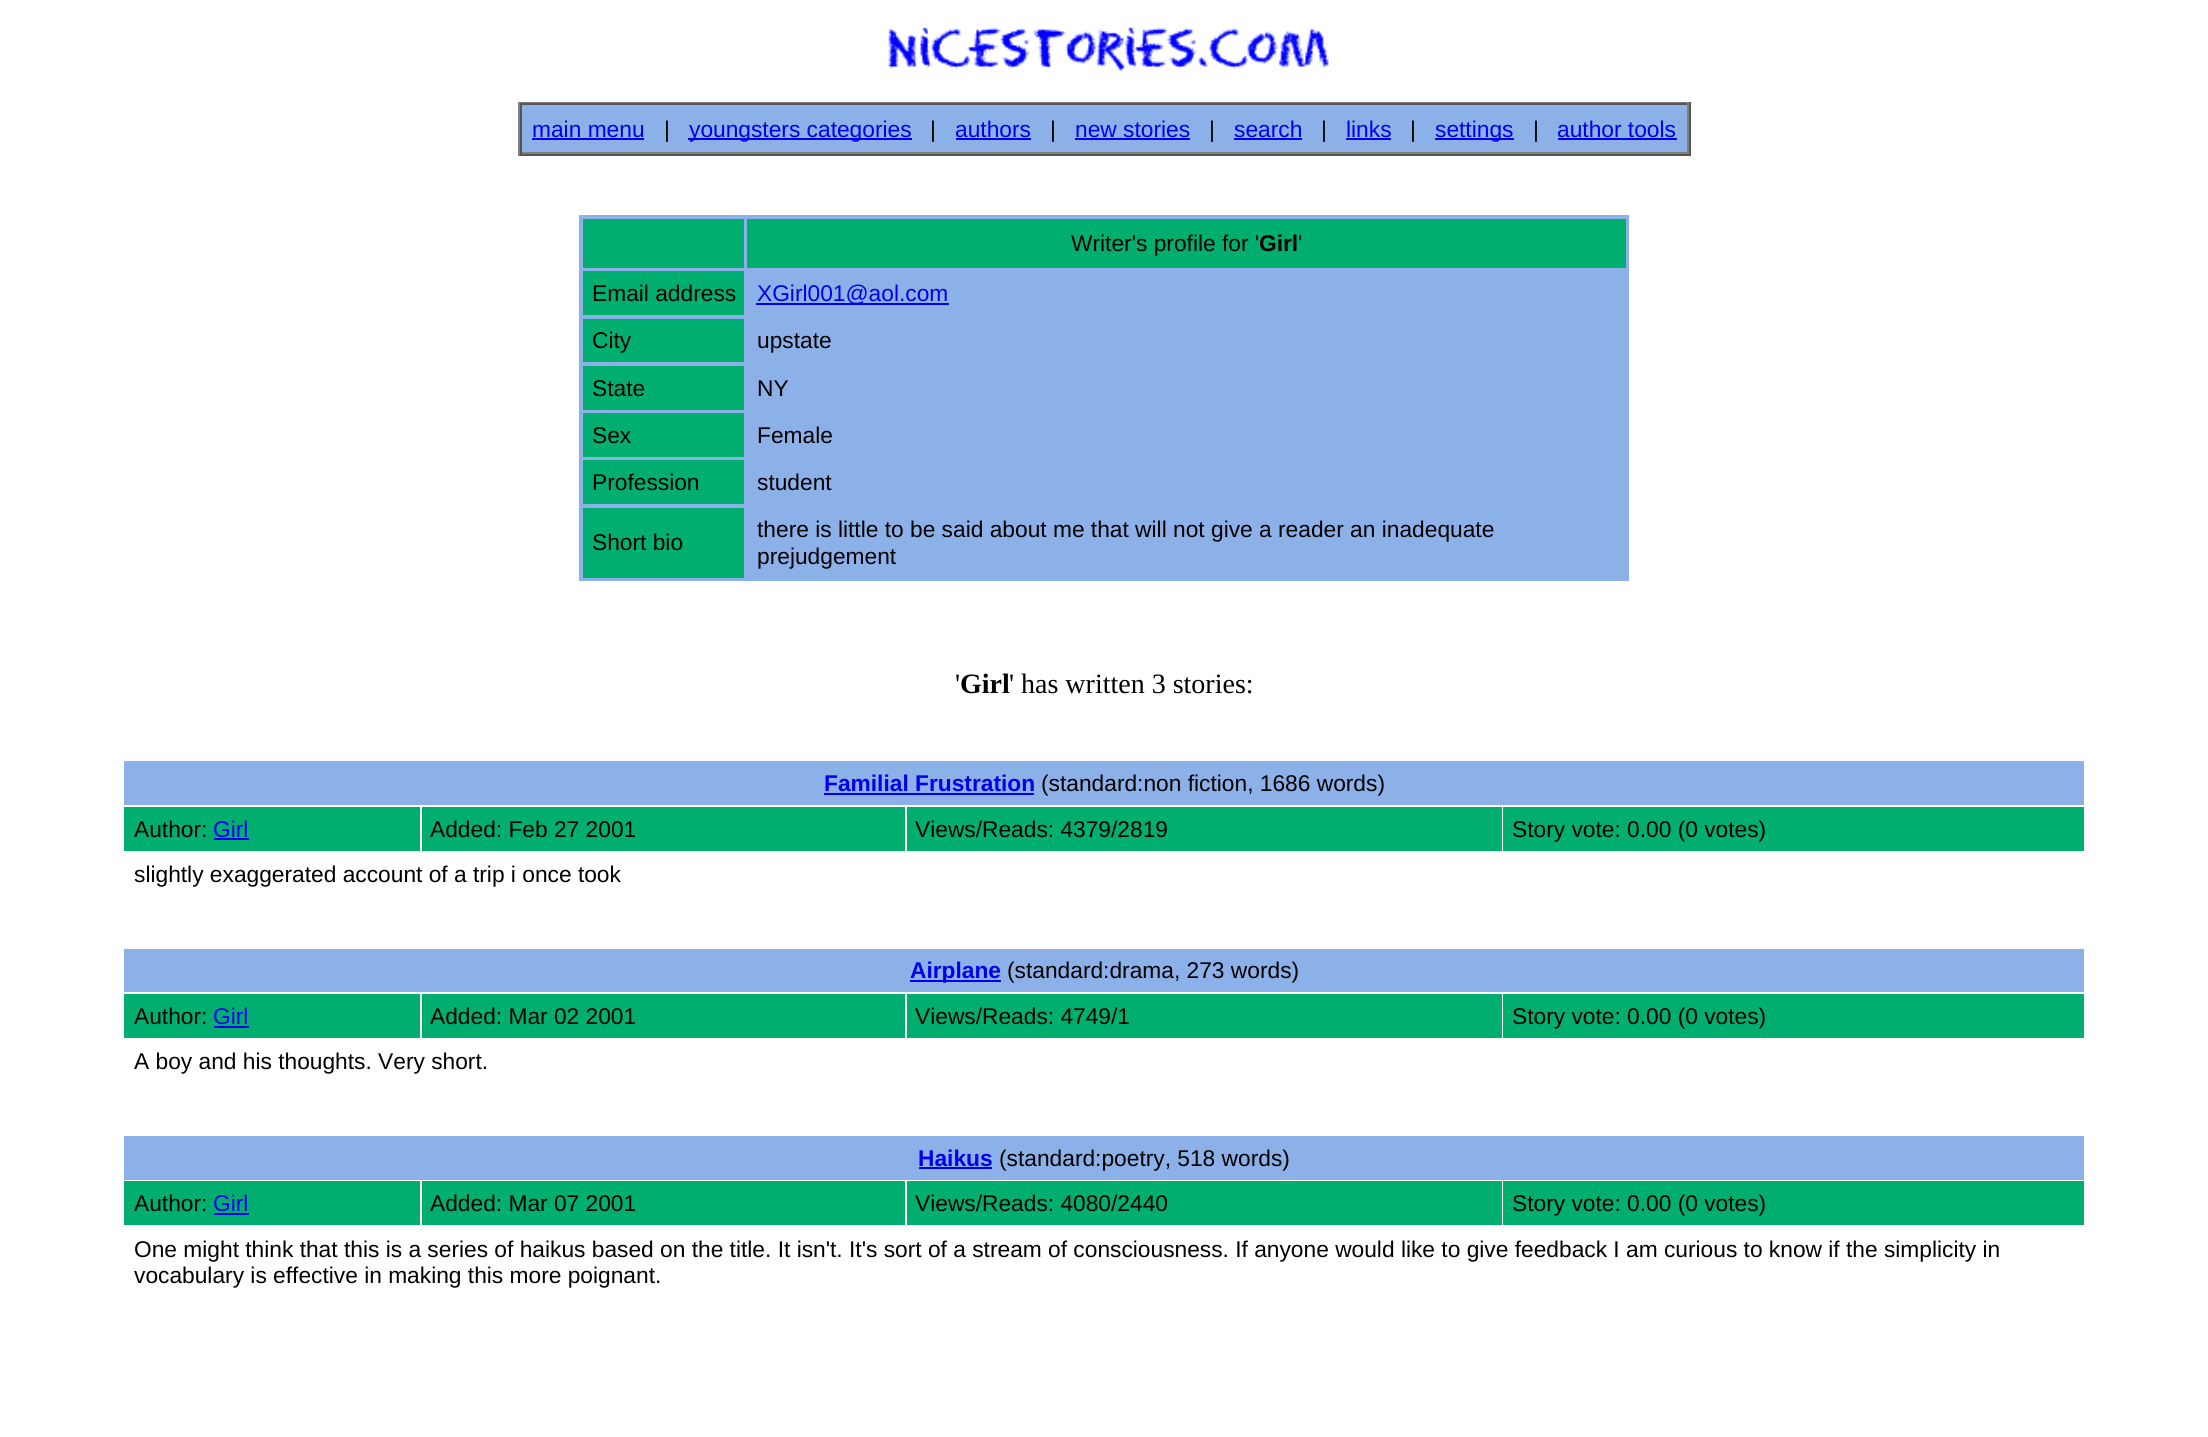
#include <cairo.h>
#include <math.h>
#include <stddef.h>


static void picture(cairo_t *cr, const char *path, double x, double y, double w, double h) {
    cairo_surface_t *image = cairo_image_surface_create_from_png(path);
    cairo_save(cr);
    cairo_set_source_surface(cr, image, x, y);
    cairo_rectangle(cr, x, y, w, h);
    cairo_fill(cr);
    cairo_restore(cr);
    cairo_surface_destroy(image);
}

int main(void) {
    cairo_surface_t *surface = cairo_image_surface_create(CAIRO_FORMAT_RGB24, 2208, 1437);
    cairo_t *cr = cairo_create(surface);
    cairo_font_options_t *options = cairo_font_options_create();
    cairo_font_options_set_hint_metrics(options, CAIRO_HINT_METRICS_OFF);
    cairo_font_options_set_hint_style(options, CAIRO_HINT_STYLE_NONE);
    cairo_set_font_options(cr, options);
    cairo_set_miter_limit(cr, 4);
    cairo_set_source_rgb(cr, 1, 1, 1);
    cairo_paint(cr);
    picture(cr, "img1.png", 888, 27, 441, 45);
    cairo_set_source_rgb(cr, 0.502, 0.502, 0.502);
    cairo_rectangle(cr, 518, 102, 1173, 1);
    cairo_fill(cr);
    cairo_set_source_rgb(cr, 0.333, 0.333, 0.333);
    cairo_rectangle(cr, 1689, 102, 2, 54);
    cairo_fill(cr);
    cairo_rectangle(cr, 518, 154, 1173, 2);
    cairo_fill(cr);
    cairo_set_source_rgb(cr, 0.502, 0.502, 0.502);
    cairo_rectangle(cr, 518, 102, 2, 54);
    cairo_fill(cr);
    cairo_set_source_rgb(cr, 0.549, 0.69, 0.91);
    cairo_rectangle(cr, 522, 105, 1165, 47);
    cairo_fill(cr);
    cairo_set_source_rgb(cr, 0.333, 0.333, 0.333);
    cairo_rectangle(cr, 520, 103, 1169, 2);
    cairo_fill(cr);
    cairo_set_source_rgb(cr, 0.502, 0.502, 0.502);
    cairo_rectangle(cr, 1687, 103, 2, 51);
    cairo_fill(cr);
    cairo_rectangle(cr, 520, 152, 1169, 2);
    cairo_fill(cr);
    cairo_set_source_rgb(cr, 0.333, 0.333, 0.333);
    cairo_rectangle(cr, 520, 103, 2, 51);
    cairo_fill(cr);
    cairo_select_font_face(cr, "Liberation Sans", CAIRO_FONT_SLANT_NORMAL, CAIRO_FONT_WEIGHT_NORMAL);
    cairo_set_font_size(cr, 22.75);
    cairo_set_source_rgb(cr, 0, 0, 0.933);
    cairo_move_to(cr, 532, 137);
    cairo_show_text(cr, "main menu");
    cairo_rectangle(cr, 532, 138, 112, 2);
    cairo_fill(cr);
    cairo_set_source_rgb(cr, 0, 0, 0);
    cairo_move_to(cr, 664, 137);
    cairo_show_text(cr, "|");
    cairo_set_source_rgb(cr, 0, 0, 0.933);
    cairo_rectangle(cr, 688, 138, 224, 2);
    cairo_fill(cr);
    cairo_move_to(cr, 689, 137);
    cairo_show_text(cr, "youngsters categories");
    cairo_set_source_rgb(cr, 0, 0, 0);
    cairo_move_to(cr, 930, 137);
    cairo_show_text(cr, "|");
    cairo_set_source_rgb(cr, 0, 0, 0.933);
    cairo_move_to(cr, 955, 137);
    cairo_show_text(cr, "authors");
    cairo_rectangle(cr, 956, 138, 75, 2);
    cairo_fill(cr);
    cairo_set_source_rgb(cr, 0, 0, 0);
    cairo_move_to(cr, 1050, 137);
    cairo_show_text(cr, "|");
    cairo_set_source_rgb(cr, 0, 0, 0.933);
    cairo_move_to(cr, 1075, 137);
    cairo_show_text(cr, "new stories");
    cairo_rectangle(cr, 1075, 138, 115, 2);
    cairo_fill(cr);
    cairo_set_source_rgb(cr, 0, 0, 0);
    cairo_move_to(cr, 1209, 137);
    cairo_show_text(cr, "|");
    cairo_set_source_rgb(cr, 0, 0, 0.933);
    cairo_move_to(cr, 1234, 137);
    cairo_show_text(cr, "search");
    cairo_rectangle(cr, 1234, 138, 68, 2);
    cairo_fill(cr);
    cairo_set_source_rgb(cr, 0, 0, 0);
    cairo_move_to(cr, 1321, 137);
    cairo_show_text(cr, "|");
    cairo_set_source_rgb(cr, 0, 0, 0.933);
    cairo_move_to(cr, 1346, 137);
    cairo_show_text(cr, "links");
    cairo_rectangle(cr, 1346, 138, 45, 2);
    cairo_fill(cr);
    cairo_set_source_rgb(cr, 0, 0, 0);
    cairo_move_to(cr, 1410, 137);
    cairo_show_text(cr, "|");
    cairo_set_source_rgb(cr, 0, 0, 0.933);
    cairo_rectangle(cr, 1435, 138, 79, 2);
    cairo_fill(cr);
    cairo_move_to(cr, 1435, 137);
    cairo_show_text(cr, "settings");
    cairo_set_source_rgb(cr, 0, 0, 0);
    cairo_move_to(cr, 1533, 137);
    cairo_show_text(cr, "|");
    cairo_set_source_rgb(cr, 0, 0, 0.933);
    cairo_move_to(cr, 1557, 137);
    cairo_show_text(cr, "author tools");
    cairo_rectangle(cr, 1558, 138, 119, 2);
    cairo_fill(cr);
    cairo_set_source_rgb(cr, 0.549, 0.69, 0.91);
    cairo_rectangle(cr, 579, 215, 1050, 366);
    cairo_fill(cr);
    cairo_set_source_rgb(cr, 0, 0.686, 0.435);
    cairo_rectangle(cr, 583, 219, 161, 49);
    cairo_fill(cr);
    cairo_rectangle(cr, 747, 219, 879, 49);
    cairo_fill(cr);
    cairo_set_source_rgb(cr, 0, 0, 0);
    cairo_move_to(cr, 1071, 251);
    cairo_show_text(cr, "Writer's profile for '");
    cairo_select_font_face(cr, "Liberation Sans", CAIRO_FONT_SLANT_NORMAL, CAIRO_FONT_WEIGHT_BOLD);
    cairo_move_to(cr, 1259, 251);
    cairo_show_text(cr, "Girl");
    cairo_select_font_face(cr, "Liberation Sans", CAIRO_FONT_SLANT_NORMAL, CAIRO_FONT_WEIGHT_NORMAL);
    cairo_move_to(cr, 1298, 251);
    cairo_show_text(cr, "'");
    cairo_set_source_rgb(cr, 0, 0.686, 0.435);
    cairo_rectangle(cr, 583, 271, 161, 44);
    cairo_fill(cr);
    cairo_set_source_rgb(cr, 0, 0, 0);
    cairo_move_to(cr, 592, 301);
    cairo_show_text(cr, "Email address");
    cairo_set_source_rgb(cr, 0, 0, 0.933);
    cairo_rectangle(cr, 756, 303, 193, 2);
    cairo_fill(cr);
    cairo_move_to(cr, 757, 301);
    cairo_show_text(cr, "XGirl001@aol.com");
    cairo_set_source_rgb(cr, 0, 0.686, 0.435);
    cairo_rectangle(cr, 583, 319, 161, 43);
    cairo_fill(cr);
    cairo_set_source_rgb(cr, 0, 0, 0);
    cairo_move_to(cr, 592, 348);
    cairo_show_text(cr, "City");
    cairo_move_to(cr, 757, 348);
    cairo_show_text(cr, "upstate");
    cairo_set_source_rgb(cr, 0, 0.686, 0.435);
    cairo_rectangle(cr, 583, 366, 161, 44);
    cairo_fill(cr);
    cairo_set_source_rgb(cr, 0, 0, 0);
    cairo_move_to(cr, 592, 396);
    cairo_show_text(cr, "State");
    cairo_move_to(cr, 757, 396);
    cairo_show_text(cr, "NY");
    cairo_set_source_rgb(cr, 0, 0.686, 0.435);
    cairo_rectangle(cr, 583, 413, 161, 44);
    cairo_fill(cr);
    cairo_set_source_rgb(cr, 0, 0, 0);
    cairo_move_to(cr, 592, 443);
    cairo_show_text(cr, "Sex");
    cairo_move_to(cr, 757, 443);
    cairo_show_text(cr, "Female");
    cairo_set_source_rgb(cr, 0, 0.686, 0.435);
    cairo_rectangle(cr, 583, 460, 161, 44);
    cairo_fill(cr);
    cairo_set_source_rgb(cr, 0, 0, 0);
    cairo_move_to(cr, 592, 490);
    cairo_show_text(cr, "Profession");
    cairo_move_to(cr, 757, 490);
    cairo_show_text(cr, "student");
    cairo_set_source_rgb(cr, 0, 0.686, 0.435);
    cairo_rectangle(cr, 583, 508, 161, 70);
    cairo_fill(cr);
    cairo_set_source_rgb(cr, 0, 0, 0);
    cairo_move_to(cr, 592, 550);
    cairo_show_text(cr, "Short bio");
    cairo_move_to(cr, 757, 537);
    cairo_show_text(cr, "there is little to be said about me that will not give a reader an inadequate");
    cairo_move_to(cr, 757, 564);
    cairo_show_text(cr, "prejudgement");
    cairo_select_font_face(cr, "Liberation Serif", CAIRO_FONT_SLANT_NORMAL, CAIRO_FONT_WEIGHT_NORMAL);
    cairo_set_font_size(cr, 28);
    cairo_move_to(cr, 955, 693);
    cairo_show_text(cr, "'");
    cairo_select_font_face(cr, "Liberation Serif", CAIRO_FONT_SLANT_NORMAL, CAIRO_FONT_WEIGHT_BOLD);
    cairo_move_to(cr, 960, 693);
    cairo_show_text(cr, "Girl");
    cairo_select_font_face(cr, "Liberation Serif", CAIRO_FONT_SLANT_NORMAL, CAIRO_FONT_WEIGHT_NORMAL);
    cairo_move_to(cr, 1009, 693);
    cairo_show_text(cr, "' has written 3 stories:");
    cairo_set_source_rgb(cr, 0.549, 0.69, 0.91);
    cairo_rectangle(cr, 124, 761, 1960, 44);
    cairo_fill(cr);
    cairo_select_font_face(cr, "Liberation Sans", CAIRO_FONT_SLANT_NORMAL, CAIRO_FONT_WEIGHT_BOLD);
    cairo_set_font_size(cr, 22.75);
    cairo_set_source_rgb(cr, 0, 0, 0.933);
    cairo_move_to(cr, 824, 791);
    cairo_show_text(cr, "Familial Frustration");
    cairo_rectangle(cr, 824, 793, 210, 2);
    cairo_fill(cr);
    cairo_select_font_face(cr, "Liberation Sans", CAIRO_FONT_SLANT_NORMAL, CAIRO_FONT_WEIGHT_NORMAL);
    cairo_set_source_rgb(cr, 0, 0, 0);
    cairo_move_to(cr, 1041, 791);
    cairo_show_text(cr, "(standard:non fiction, 1686 words)");
    cairo_set_source_rgb(cr, 0, 0.686, 0.435);
    cairo_rectangle(cr, 124, 807, 296, 44);
    cairo_fill(cr);
    cairo_set_source_rgb(cr, 0, 0, 0);
    cairo_move_to(cr, 134, 837);
    cairo_show_text(cr, "Author:");
    cairo_set_source_rgb(cr, 0, 0, 0.933);
    cairo_move_to(cr, 213, 837);
    cairo_show_text(cr, "Girl");
    cairo_rectangle(cr, 214, 838, 35, 2);
    cairo_fill(cr);
    cairo_set_source_rgb(cr, 0, 0.686, 0.435);
    cairo_rectangle(cr, 422, 807, 483, 44);
    cairo_fill(cr);
    cairo_set_source_rgb(cr, 0, 0, 0);
    cairo_move_to(cr, 430, 837);
    cairo_show_text(cr, "Added: Feb 27 2001");
    cairo_set_source_rgb(cr, 0, 0.686, 0.435);
    cairo_rectangle(cr, 907, 807, 595, 44);
    cairo_fill(cr);
    cairo_set_source_rgb(cr, 0, 0, 0);
    cairo_move_to(cr, 915, 837);
    cairo_show_text(cr, "Views/Reads: 4379/2819");
    cairo_set_source_rgb(cr, 0, 0.686, 0.435);
    cairo_rectangle(cr, 1503, 807, 581, 44);
    cairo_fill(cr);
    cairo_set_source_rgb(cr, 0, 0, 0);
    cairo_move_to(cr, 1512, 837);
    cairo_show_text(cr, "Story vote: 0.00 (0 votes)");
    cairo_move_to(cr, 134, 882);
    cairo_show_text(cr, "slightly exaggerated account of a trip i once took");
    cairo_set_source_rgb(cr, 0.549, 0.69, 0.91);
    cairo_rectangle(cr, 124, 949, 1960, 43);
    cairo_fill(cr);
    cairo_set_source_rgb(cr, 0, 0, 0.933);
    cairo_rectangle(cr, 910, 980, 91, 2);
    cairo_fill(cr);
    cairo_select_font_face(cr, "Liberation Sans", CAIRO_FONT_SLANT_NORMAL, CAIRO_FONT_WEIGHT_BOLD);
    cairo_move_to(cr, 910, 978);
    cairo_show_text(cr, "Airplane");
    cairo_select_font_face(cr, "Liberation Sans", CAIRO_FONT_SLANT_NORMAL, CAIRO_FONT_WEIGHT_NORMAL);
    cairo_set_source_rgb(cr, 0, 0, 0);
    cairo_move_to(cr, 1007, 978);
    cairo_show_text(cr, "(standard:drama, 273 words)");
    cairo_set_source_rgb(cr, 0, 0.686, 0.435);
    cairo_rectangle(cr, 124, 994, 296, 44);
    cairo_fill(cr);
    cairo_set_source_rgb(cr, 0, 0, 0);
    cairo_move_to(cr, 134, 1024);
    cairo_show_text(cr, "Author:");
    cairo_set_source_rgb(cr, 0, 0, 0.933);
    cairo_move_to(cr, 213, 1024);
    cairo_show_text(cr, "Girl");
    cairo_rectangle(cr, 214, 1026, 35, 2);
    cairo_fill(cr);
    cairo_set_source_rgb(cr, 0, 0.686, 0.435);
    cairo_rectangle(cr, 422, 994, 483, 44);
    cairo_fill(cr);
    cairo_set_source_rgb(cr, 0, 0, 0);
    cairo_move_to(cr, 430, 1024);
    cairo_show_text(cr, "Added: Mar 02 2001");
    cairo_set_source_rgb(cr, 0, 0.686, 0.435);
    cairo_rectangle(cr, 907, 994, 595, 44);
    cairo_fill(cr);
    cairo_set_source_rgb(cr, 0, 0, 0);
    cairo_move_to(cr, 915, 1024);
    cairo_show_text(cr, "Views/Reads: 4749/1");
    cairo_set_source_rgb(cr, 0, 0.686, 0.435);
    cairo_rectangle(cr, 1503, 994, 581, 44);
    cairo_fill(cr);
    cairo_set_source_rgb(cr, 0, 0, 0);
    cairo_move_to(cr, 1512, 1024);
    cairo_show_text(cr, "Story vote: 0.00 (0 votes)");
    cairo_move_to(cr, 134, 1069);
    cairo_show_text(cr, "A boy and his thoughts. Very short.");
    cairo_set_source_rgb(cr, 0.549, 0.69, 0.91);
    cairo_rectangle(cr, 124, 1136, 1960, 44);
    cairo_fill(cr);
    cairo_select_font_face(cr, "Liberation Sans", CAIRO_FONT_SLANT_NORMAL, CAIRO_FONT_WEIGHT_BOLD);
    cairo_set_source_rgb(cr, 0, 0, 0.933);
    cairo_move_to(cr, 918, 1166);
    cairo_show_text(cr, "Haikus");
    cairo_rectangle(cr, 919, 1167, 73, 2);
    cairo_fill(cr);
    cairo_select_font_face(cr, "Liberation Sans", CAIRO_FONT_SLANT_NORMAL, CAIRO_FONT_WEIGHT_NORMAL);
    cairo_set_source_rgb(cr, 0, 0, 0);
    cairo_move_to(cr, 999, 1166);
    cairo_show_text(cr, "(standard:poetry, 518 words)");
    cairo_set_source_rgb(cr, 0, 0.686, 0.435);
    cairo_rectangle(cr, 124, 1181, 296, 44);
    cairo_fill(cr);
    cairo_set_source_rgb(cr, 0, 0, 0);
    cairo_move_to(cr, 134, 1211);
    cairo_show_text(cr, "Author:");
    cairo_set_source_rgb(cr, 0, 0, 0.933);
    cairo_move_to(cr, 213, 1211);
    cairo_show_text(cr, "Girl");
    cairo_rectangle(cr, 214, 1213, 35, 2);
    cairo_fill(cr);
    cairo_set_source_rgb(cr, 0, 0.686, 0.435);
    cairo_rectangle(cr, 422, 1181, 483, 44);
    cairo_fill(cr);
    cairo_set_source_rgb(cr, 0, 0, 0);
    cairo_move_to(cr, 430, 1211);
    cairo_show_text(cr, "Added: Mar 07 2001");
    cairo_set_source_rgb(cr, 0, 0.686, 0.435);
    cairo_rectangle(cr, 907, 1181, 595, 44);
    cairo_fill(cr);
    cairo_set_source_rgb(cr, 0, 0, 0);
    cairo_move_to(cr, 915, 1211);
    cairo_show_text(cr, "Views/Reads: 4080/2440");
    cairo_set_source_rgb(cr, 0, 0.686, 0.435);
    cairo_rectangle(cr, 1503, 1181, 581, 44);
    cairo_fill(cr);
    cairo_set_source_rgb(cr, 0, 0, 0);
    cairo_move_to(cr, 1512, 1211);
    cairo_show_text(cr, "Story vote: 0.00 (0 votes)");
    cairo_move_to(cr, 134, 1257);
    cairo_show_text(cr, "One might think that this is a series of haikus based on the title. It isn't. It's sort of a stream of consciousness. If anyone would like to give feedback I am curious to know if the simplicity in");
    cairo_move_to(cr, 134, 1283);
    cairo_show_text(cr, "vocabulary is effective in making this more poignant.");
    cairo_surface_write_to_png(surface, "page.png");
    cairo_font_options_destroy(options);
    cairo_destroy(cr);
    cairo_surface_destroy(surface);
    return 0;
}
